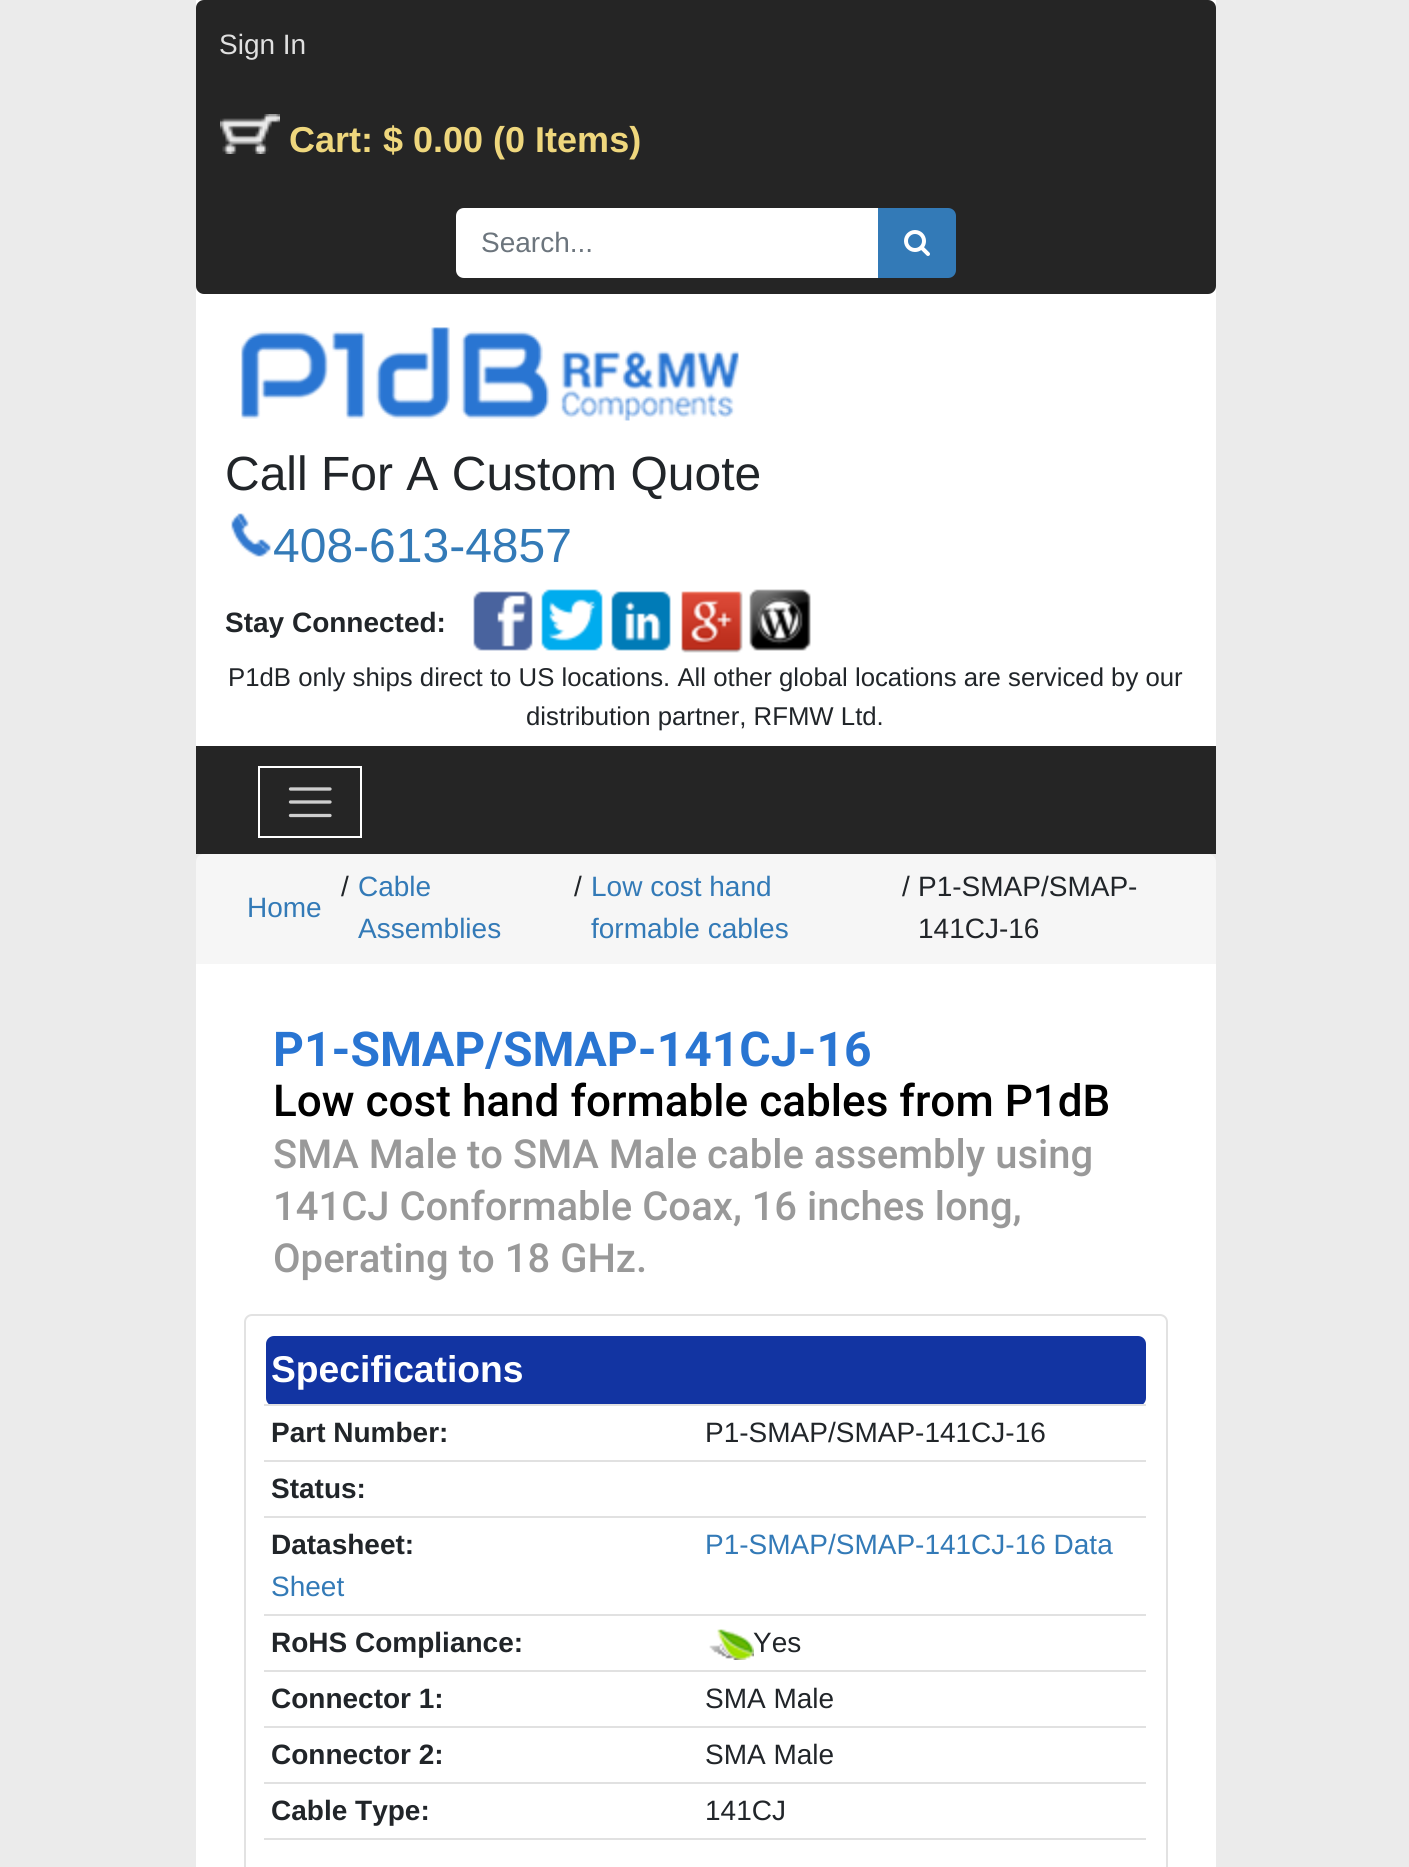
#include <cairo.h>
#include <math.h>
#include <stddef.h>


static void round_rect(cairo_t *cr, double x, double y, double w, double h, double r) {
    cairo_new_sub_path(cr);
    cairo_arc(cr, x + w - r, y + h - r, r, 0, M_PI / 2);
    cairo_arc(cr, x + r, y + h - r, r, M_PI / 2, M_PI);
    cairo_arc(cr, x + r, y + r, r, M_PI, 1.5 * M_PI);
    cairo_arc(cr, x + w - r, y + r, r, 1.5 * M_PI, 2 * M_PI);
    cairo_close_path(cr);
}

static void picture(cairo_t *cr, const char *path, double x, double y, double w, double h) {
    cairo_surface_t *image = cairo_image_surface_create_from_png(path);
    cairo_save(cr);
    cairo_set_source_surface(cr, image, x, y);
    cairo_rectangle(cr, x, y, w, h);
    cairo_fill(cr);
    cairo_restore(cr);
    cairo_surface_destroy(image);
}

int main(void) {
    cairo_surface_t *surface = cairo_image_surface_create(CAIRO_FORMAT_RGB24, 1409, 1867);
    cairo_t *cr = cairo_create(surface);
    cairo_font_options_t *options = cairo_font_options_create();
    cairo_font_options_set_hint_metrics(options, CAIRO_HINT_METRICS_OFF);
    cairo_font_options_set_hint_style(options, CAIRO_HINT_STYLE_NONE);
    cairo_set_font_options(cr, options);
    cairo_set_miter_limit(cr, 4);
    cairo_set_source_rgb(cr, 0.918, 0.918, 0.918);
    cairo_paint(cr);
    cairo_set_source_rgb(cr, 1, 1, 1);
    cairo_rectangle(cr, 196, 0, 1020, 746);
    cairo_fill(cr);
    cairo_set_source_rgb(cr, 0.145, 0.145, 0.145);
    round_rect(cr, 196, 0, 1020, 294, 8);
    cairo_fill(cr);
    cairo_select_font_face(cr, "Liberation Sans", CAIRO_FONT_SLANT_NORMAL, CAIRO_FONT_WEIGHT_NORMAL);
    cairo_set_font_size(cr, 28);
    cairo_set_source_rgb(cr, 0.878, 0.878, 0.878);
    cairo_move_to(cr, 219, 54);
    cairo_show_text(cr, "Sign In");
    picture(cr, "img1.png", 220, 114, 60, 40);
    cairo_select_font_face(cr, "Liberation Sans", CAIRO_FONT_SLANT_NORMAL, CAIRO_FONT_WEIGHT_BOLD);
    cairo_set_font_size(cr, 36);
    cairo_set_source_rgb(cr, 0.937, 0.843, 0.49);
    cairo_move_to(cr, 289, 152);
    cairo_show_text(cr, "Cart: $ 0.00 (0 Items)");
    cairo_set_source_rgb(cr, 1, 1, 1);
    cairo_new_path(cr);
    cairo_move_to(cr, 464, 209);
    cairo_line_to(cr, 879, 209);
    cairo_line_to(cr, 879, 277);
    cairo_line_to(cr, 464, 277);
    cairo_curve_to(cr, 460, 277, 457, 274, 457, 270);
    cairo_line_to(cr, 457, 216);
    cairo_curve_to(cr, 457, 212, 460, 209, 464, 209);
    cairo_close_path(cr);
    cairo_fill_preserve(cr);
    cairo_stroke(cr);
    cairo_select_font_face(cr, "Liberation Sans", CAIRO_FONT_SLANT_NORMAL, CAIRO_FONT_WEIGHT_NORMAL);
    cairo_set_font_size(cr, 28);
    cairo_set_source_rgb(cr, 0.424, 0.459, 0.49);
    cairo_move_to(cr, 481, 252);
    cairo_show_text(cr, "Search...");
    cairo_set_source_rgb(cr, 0.2, 0.478, 0.718);
    cairo_new_path(cr);
    cairo_move_to(cr, 879, 209);
    cairo_line_to(cr, 948, 209);
    cairo_curve_to(cr, 952, 209, 955, 212, 955, 216);
    cairo_line_to(cr, 955, 270);
    cairo_curve_to(cr, 955, 274, 952, 277, 948, 277);
    cairo_line_to(cr, 879, 277);
    cairo_close_path(cr);
    cairo_fill_preserve(cr);
    cairo_stroke(cr);
    picture(cr, "img2.png", 904, 230, 26, 26);
    picture(cr, "img3.png", 241, 327, 498, 94);
    cairo_set_font_size(cr, 48);
    cairo_set_source_rgb(cr, 0.129, 0.145, 0.161);
    cairo_move_to(cr, 225, 490);
    cairo_show_text(cr, "Call For A Custom Quote");
    picture(cr, "img4.png", 231, 513, 40, 44);
    cairo_set_source_rgb(cr, 0.2, 0.478, 0.718);
    cairo_move_to(cr, 273, 562);
    cairo_show_text(cr, "408-613-4857");
    cairo_select_font_face(cr, "Liberation Sans", CAIRO_FONT_SLANT_NORMAL, CAIRO_FONT_WEIGHT_BOLD);
    cairo_set_font_size(cr, 28);
    cairo_set_source_rgb(cr, 0.129, 0.145, 0.161);
    cairo_move_to(cr, 225, 632);
    cairo_show_text(cr, "Stay Connected:");
    picture(cr, "img5.png", 473, 589, 338, 64);
    cairo_select_font_face(cr, "Liberation Sans", CAIRO_FONT_SLANT_NORMAL, CAIRO_FONT_WEIGHT_NORMAL);
    cairo_set_font_size(cr, 25.75);
    cairo_move_to(cr, 228, 686);
    cairo_show_text(cr, "P1dB only ships direct to US locations. All other global locations are serviced by our");
    cairo_move_to(cr, 526, 725);
    cairo_show_text(cr, "distribution partner, RFMW Ltd.");
    cairo_set_source_rgb(cr, 0.145, 0.145, 0.145);
    cairo_rectangle(cr, 196, 746, 1020, 108);
    cairo_fill(cr);
    cairo_rectangle(cr, 259, 767, 102, 70);
    cairo_set_source_rgb(cr, 1, 1, 1);
    cairo_stroke(cr);
    cairo_new_path(cr);
    cairo_move_to(cr, 290.5, 789);
    cairo_line_to(cr, 330, 789);
    cairo_move_to(cr, 290.5, 802);
    cairo_line_to(cr, 330, 802);
    cairo_move_to(cr, 290.5, 815.5);
    cairo_line_to(cr, 330, 815.5);
    cairo_set_source_rgb(cr, 0.808, 0.808, 0.808);
    cairo_set_line_width(cr, 3.3);
    cairo_set_line_cap(cr, CAIRO_LINE_CAP_ROUND);
    cairo_stroke(cr);
    cairo_set_source_rgb(cr, 0.961, 0.961, 0.961);
    round_rect(cr, 196, 854, 1020, 118, 8);
    cairo_fill(cr);
    cairo_set_font_size(cr, 28);
    cairo_set_source_rgb(cr, 0.2, 0.478, 0.718);
    cairo_move_to(cr, 247, 917);
    cairo_show_text(cr, "Home");
    cairo_set_source_rgb(cr, 0.129, 0.145, 0.161);
    cairo_move_to(cr, 341, 896);
    cairo_show_text(cr, "/");
    cairo_set_source_rgb(cr, 0.2, 0.478, 0.718);
    cairo_move_to(cr, 358, 896);
    cairo_show_text(cr, "Cable");
    cairo_move_to(cr, 358, 938);
    cairo_show_text(cr, "Assemblies");
    cairo_set_source_rgb(cr, 0.129, 0.145, 0.161);
    cairo_move_to(cr, 574, 896);
    cairo_show_text(cr, "/");
    cairo_set_source_rgb(cr, 0.2, 0.478, 0.718);
    cairo_move_to(cr, 591, 896);
    cairo_show_text(cr, "Low cost hand");
    cairo_move_to(cr, 591, 938);
    cairo_show_text(cr, "formable cables");
    cairo_set_source_rgb(cr, 0.129, 0.145, 0.161);
    cairo_move_to(cr, 902, 896);
    cairo_show_text(cr, "/");
    cairo_move_to(cr, 918, 896);
    cairo_show_text(cr, "P1-SMAP/SMAP-");
    cairo_move_to(cr, 918, 938);
    cairo_show_text(cr, "141CJ-16");
    cairo_set_source_rgb(cr, 1, 1, 1);
    cairo_rectangle(cr, 196, 964, 1020, 903);
    cairo_fill(cr);
    cairo_select_font_face(cr, "Roboto", CAIRO_FONT_SLANT_NORMAL, CAIRO_FONT_WEIGHT_BOLD);
    cairo_set_font_size(cr, 48);
    cairo_set_source_rgb(cr, 0.161, 0.459, 0.824);
    cairo_move_to(cr, 273, 1066);
    cairo_show_text(cr, "P1-SMAP/SMAP-141CJ-16");
    cairo_select_font_face(cr, "Roboto Medium", CAIRO_FONT_SLANT_NORMAL, CAIRO_FONT_WEIGHT_NORMAL);
    cairo_set_font_size(cr, 44);
    cairo_set_source_rgb(cr, 0, 0, 0);
    cairo_move_to(cr, 273, 1116);
    cairo_show_text(cr, "Low cost hand formable cables from P1dB");
    cairo_set_font_size(cr, 40);
    cairo_set_source_rgb(cr, 0.6, 0.6, 0.6);
    cairo_move_to(cr, 273, 1168);
    cairo_show_text(cr, "SMA Male to SMA Male cable assembly using");
    cairo_move_to(cr, 273, 1220);
    cairo_show_text(cr, "141CJ Conformable Coax, 16 inches long,");
    cairo_move_to(cr, 273, 1272);
    cairo_show_text(cr, "Operating to 18 GHz.");
    round_rect(cr, 245, 1315, 922, 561, 7);
    cairo_set_source_rgb(cr, 0.886, 0.886, 0.886);
    cairo_set_line_width(cr, 2);
    cairo_set_line_cap(cr, CAIRO_LINE_CAP_BUTT);
    cairo_stroke(cr);
    cairo_set_source_rgb(cr, 0.071, 0.204, 0.635);
    round_rect(cr, 266, 1336, 880, 70, 8);
    cairo_fill(cr);
    cairo_set_source_rgb(cr, 0.882, 0.882, 0.882);
    cairo_rectangle(cr, 264, 1404, 882, 2);
    cairo_fill(cr);
    cairo_select_font_face(cr, "Liberation Sans", CAIRO_FONT_SLANT_NORMAL, CAIRO_FONT_WEIGHT_BOLD);
    cairo_set_font_size(cr, 37.25);
    cairo_set_source_rgb(cr, 1, 1, 1);
    cairo_move_to(cr, 271, 1382);
    cairo_show_text(cr, "Specifications");
    cairo_set_source_rgb(cr, 0.882, 0.882, 0.882);
    cairo_rectangle(cr, 264, 1460, 882, 2);
    cairo_fill(cr);
    cairo_set_font_size(cr, 28);
    cairo_set_source_rgb(cr, 0.129, 0.145, 0.161);
    cairo_move_to(cr, 271, 1442);
    cairo_show_text(cr, "Part Number:");
    cairo_select_font_face(cr, "Liberation Sans", CAIRO_FONT_SLANT_NORMAL, CAIRO_FONT_WEIGHT_NORMAL);
    cairo_move_to(cr, 705, 1442);
    cairo_show_text(cr, "P1-SMAP/SMAP-141CJ-16");
    cairo_set_source_rgb(cr, 0.882, 0.882, 0.882);
    cairo_rectangle(cr, 264, 1516, 882, 2);
    cairo_fill(cr);
    cairo_select_font_face(cr, "Liberation Sans", CAIRO_FONT_SLANT_NORMAL, CAIRO_FONT_WEIGHT_BOLD);
    cairo_set_source_rgb(cr, 0.129, 0.145, 0.161);
    cairo_move_to(cr, 271, 1498);
    cairo_show_text(cr, "Status:");
    cairo_set_source_rgb(cr, 0.882, 0.882, 0.882);
    cairo_rectangle(cr, 264, 1614, 882, 2);
    cairo_fill(cr);
    cairo_set_source_rgb(cr, 0.129, 0.145, 0.161);
    cairo_move_to(cr, 271, 1554);
    cairo_show_text(cr, "Datasheet:");
    cairo_select_font_face(cr, "Liberation Sans", CAIRO_FONT_SLANT_NORMAL, CAIRO_FONT_WEIGHT_NORMAL);
    cairo_set_source_rgb(cr, 0.2, 0.478, 0.718);
    cairo_move_to(cr, 705, 1554);
    cairo_show_text(cr, "P1-SMAP/SMAP-141CJ-16 Data");
    cairo_move_to(cr, 271, 1596);
    cairo_show_text(cr, "Sheet");
    cairo_set_source_rgb(cr, 0.882, 0.882, 0.882);
    cairo_rectangle(cr, 264, 1670, 882, 2);
    cairo_fill(cr);
    cairo_select_font_face(cr, "Liberation Sans", CAIRO_FONT_SLANT_NORMAL, CAIRO_FONT_WEIGHT_BOLD);
    cairo_set_source_rgb(cr, 0.129, 0.145, 0.161);
    cairo_move_to(cr, 271, 1652);
    cairo_show_text(cr, "RoHS Compliance:");
    picture(cr, "img6.png", 709, 1629, 45, 31);
    cairo_select_font_face(cr, "Liberation Sans", CAIRO_FONT_SLANT_NORMAL, CAIRO_FONT_WEIGHT_NORMAL);
    cairo_move_to(cr, 753, 1652);
    cairo_show_text(cr, "Yes");
    cairo_set_source_rgb(cr, 0.882, 0.882, 0.882);
    cairo_rectangle(cr, 264, 1726, 882, 2);
    cairo_fill(cr);
    cairo_select_font_face(cr, "Liberation Sans", CAIRO_FONT_SLANT_NORMAL, CAIRO_FONT_WEIGHT_BOLD);
    cairo_set_source_rgb(cr, 0.129, 0.145, 0.161);
    cairo_move_to(cr, 271, 1708);
    cairo_show_text(cr, "Connector 1:");
    cairo_select_font_face(cr, "Liberation Sans", CAIRO_FONT_SLANT_NORMAL, CAIRO_FONT_WEIGHT_NORMAL);
    cairo_move_to(cr, 705, 1708);
    cairo_show_text(cr, "SMA Male");
    cairo_set_source_rgb(cr, 0.882, 0.882, 0.882);
    cairo_rectangle(cr, 264, 1782, 882, 2);
    cairo_fill(cr);
    cairo_select_font_face(cr, "Liberation Sans", CAIRO_FONT_SLANT_NORMAL, CAIRO_FONT_WEIGHT_BOLD);
    cairo_set_source_rgb(cr, 0.129, 0.145, 0.161);
    cairo_move_to(cr, 271, 1764);
    cairo_show_text(cr, "Connector 2:");
    cairo_select_font_face(cr, "Liberation Sans", CAIRO_FONT_SLANT_NORMAL, CAIRO_FONT_WEIGHT_NORMAL);
    cairo_move_to(cr, 705, 1764);
    cairo_show_text(cr, "SMA Male");
    cairo_set_source_rgb(cr, 0.882, 0.882, 0.882);
    cairo_rectangle(cr, 264, 1838, 882, 2);
    cairo_fill(cr);
    cairo_select_font_face(cr, "Liberation Sans", CAIRO_FONT_SLANT_NORMAL, CAIRO_FONT_WEIGHT_BOLD);
    cairo_set_source_rgb(cr, 0.129, 0.145, 0.161);
    cairo_move_to(cr, 271, 1820);
    cairo_show_text(cr, "Cable Type:");
    cairo_select_font_face(cr, "Liberation Sans", CAIRO_FONT_SLANT_NORMAL, CAIRO_FONT_WEIGHT_NORMAL);
    cairo_move_to(cr, 705, 1820);
    cairo_show_text(cr, "141CJ");
    cairo_surface_write_to_png(surface, "page.png");
    cairo_font_options_destroy(options);
    cairo_destroy(cr);
    cairo_surface_destroy(surface);
    return 0;
}
